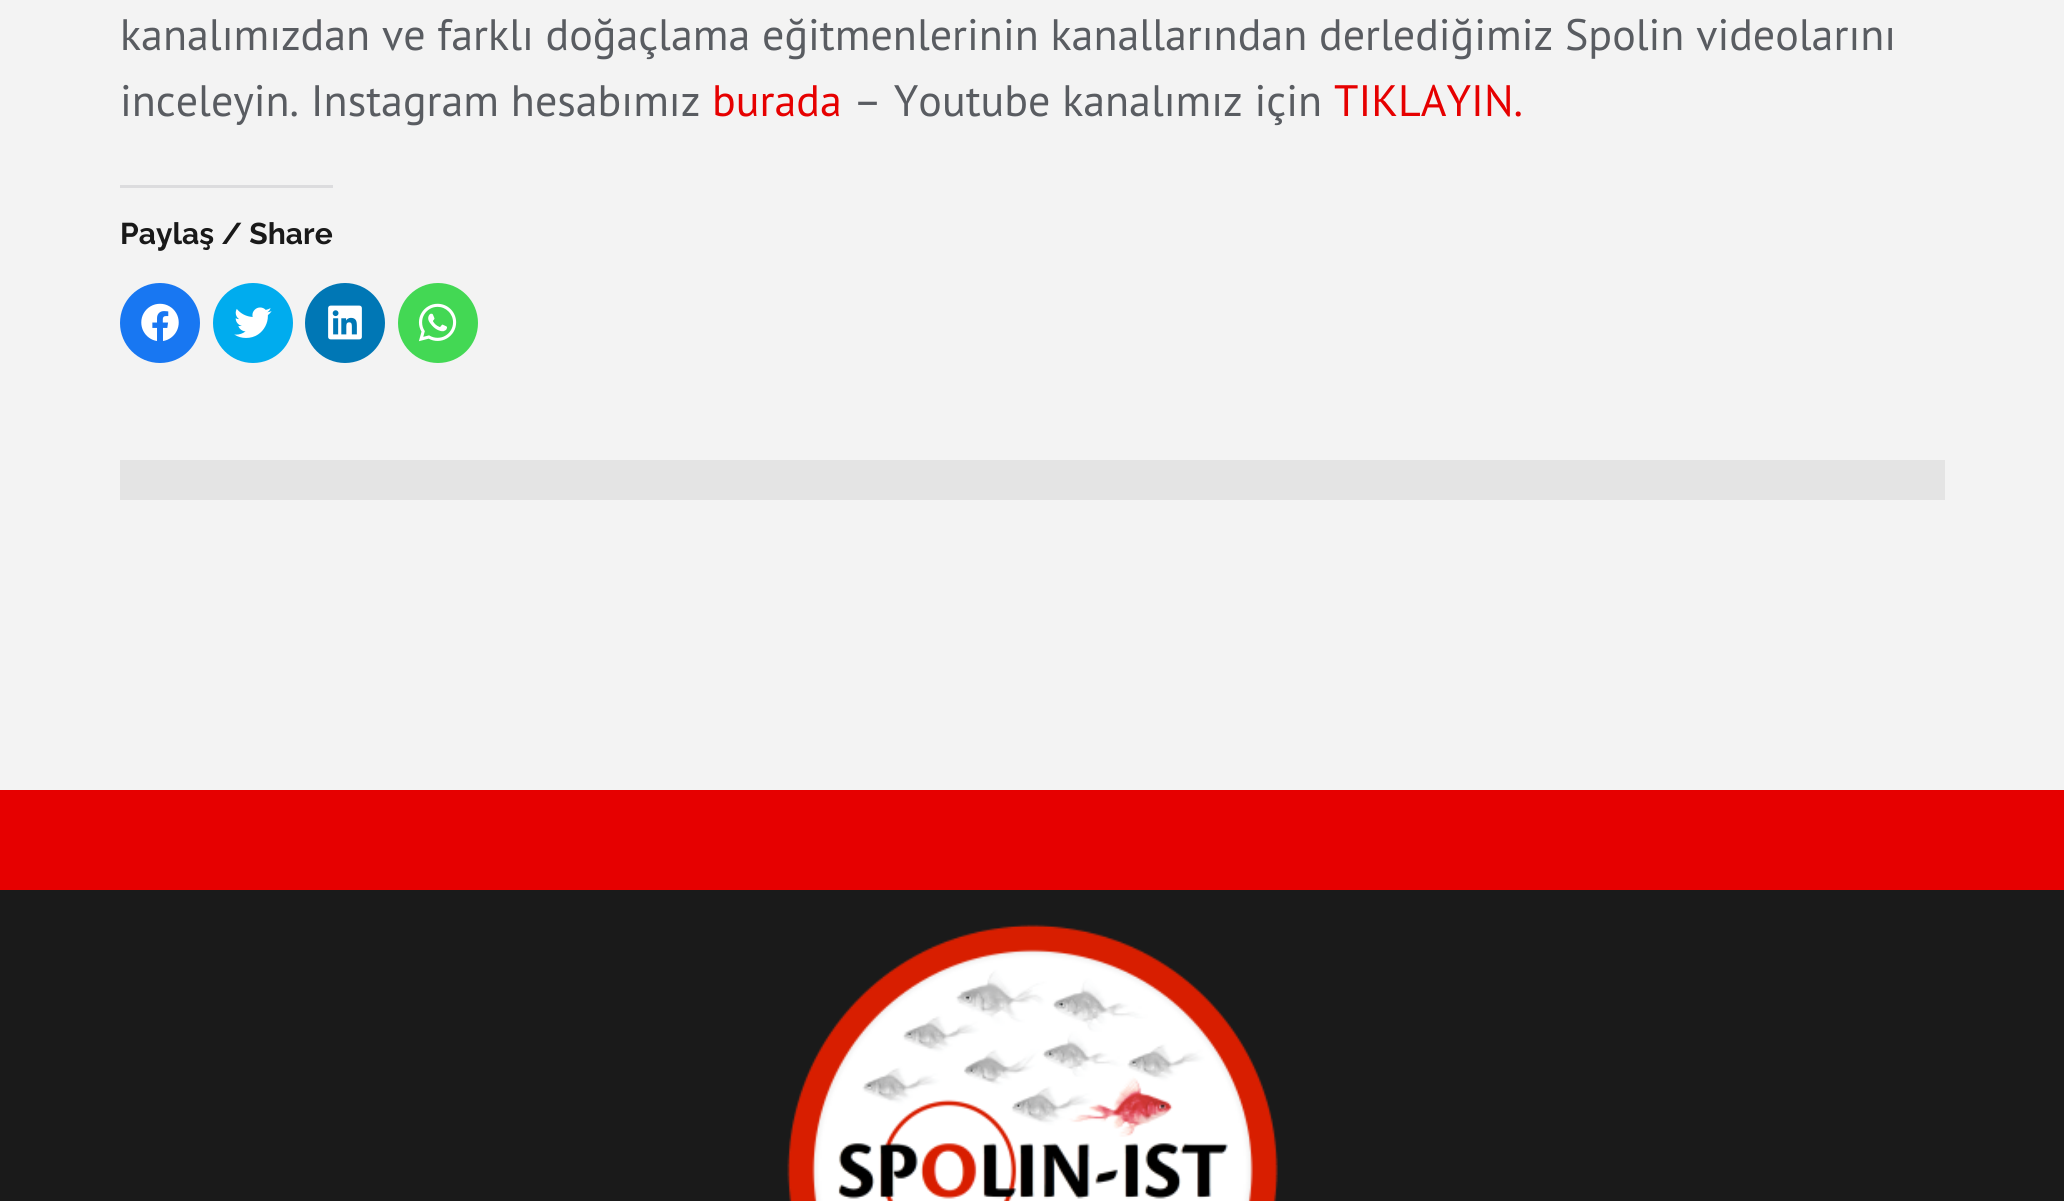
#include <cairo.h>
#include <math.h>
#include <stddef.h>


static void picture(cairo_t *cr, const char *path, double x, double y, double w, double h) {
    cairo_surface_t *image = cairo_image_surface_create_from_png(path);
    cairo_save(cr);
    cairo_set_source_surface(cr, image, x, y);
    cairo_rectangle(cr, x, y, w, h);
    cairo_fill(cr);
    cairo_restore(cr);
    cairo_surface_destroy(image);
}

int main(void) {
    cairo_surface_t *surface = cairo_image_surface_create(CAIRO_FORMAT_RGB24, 2064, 1201);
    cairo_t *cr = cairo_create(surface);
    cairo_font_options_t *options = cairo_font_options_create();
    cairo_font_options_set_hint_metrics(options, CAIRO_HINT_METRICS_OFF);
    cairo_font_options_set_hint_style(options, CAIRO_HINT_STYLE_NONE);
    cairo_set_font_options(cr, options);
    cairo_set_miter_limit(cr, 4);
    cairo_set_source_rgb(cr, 0.953, 0.953, 0.953);
    cairo_paint(cr);
    cairo_select_font_face(cr, "PT Sans", CAIRO_FONT_SLANT_NORMAL, CAIRO_FONT_WEIGHT_NORMAL);
    cairo_set_font_size(cr, 44);
    cairo_set_source_rgb(cr, 0.349, 0.361, 0.38);
    cairo_move_to(cr, 120, 50);
    cairo_show_text(cr, "kanalımızdan ve farklı doğaçlama eğitmenlerinin kanallarından derlediğimiz Spolin videolarını");
    cairo_move_to(cr, 120, 116);
    cairo_show_text(cr, "inceleyin. Instagram hesabımız");
    cairo_set_source_rgb(cr, 0.902, 0, 0);
    cairo_move_to(cr, 712, 116);
    cairo_show_text(cr, "burada");
    cairo_set_source_rgb(cr, 0.349, 0.361, 0.38);
    cairo_move_to(cr, 853, 116);
    cairo_show_text(cr, "– Youtube kanalımız için");
    cairo_set_source_rgb(cr, 0.902, 0, 0);
    cairo_move_to(cr, 1334, 116);
    cairo_show_text(cr, "TIKLAYIN.");
    cairo_set_source_rgb(cr, 0.863, 0.863, 0.871);
    cairo_rectangle(cr, 120, 185, 213, 3);
    cairo_fill(cr);
    cairo_select_font_face(cr, "Raleway", CAIRO_FONT_SLANT_NORMAL, CAIRO_FONT_WEIGHT_BOLD);
    cairo_set_font_size(cr, 30);
    cairo_set_source_rgb(cr, 0.098, 0.098, 0.098);
    cairo_move_to(cr, 120, 244);
    cairo_show_text(cr, "Paylaş / Share");
    cairo_set_source_rgb(cr, 0.094, 0.467, 0.949);
    cairo_new_path(cr);
    cairo_arc(cr, 160, 323, 40, 0, 2 * M_PI);
    cairo_fill(cr);
    picture(cr, "img1.png", 141, 303, 38, 38);
    cairo_set_source_rgb(cr, 0, 0.675, 0.933);
    cairo_arc(cr, 253, 323, 40, 0, 2 * M_PI);
    cairo_fill(cr);
    picture(cr, "img2.png", 234, 307, 38, 31);
    cairo_set_source_rgb(cr, 0, 0.467, 0.71);
    cairo_arc(cr, 345, 323, 40, 0, 2 * M_PI);
    cairo_fill(cr);
    picture(cr, "img3.png", 328, 305, 34, 35);
    cairo_set_source_rgb(cr, 0.263, 0.847, 0.329);
    cairo_arc(cr, 438, 323, 40, 0, 2 * M_PI);
    cairo_fill(cr);
    picture(cr, "img4.png", 418, 303, 39, 39);
    cairo_set_source_rgb(cr, 0.894, 0.894, 0.894);
    cairo_rectangle(cr, 120, 460, 1825, 40);
    cairo_fill(cr);
    cairo_set_source_rgb(cr, 0.902, 0, 0);
    cairo_rectangle(cr, 0, 790, 2064, 100);
    cairo_fill(cr);
    cairo_set_source_rgb(cr, 0.102, 0.102, 0.102);
    cairo_rectangle(cr, 0, 890, 2064, 311);
    cairo_fill(cr);
    picture(cr, "img5.png", 787, 924, 491, 277);
    cairo_surface_write_to_png(surface, "page.png");
    cairo_font_options_destroy(options);
    cairo_destroy(cr);
    cairo_surface_destroy(surface);
    return 0;
}
